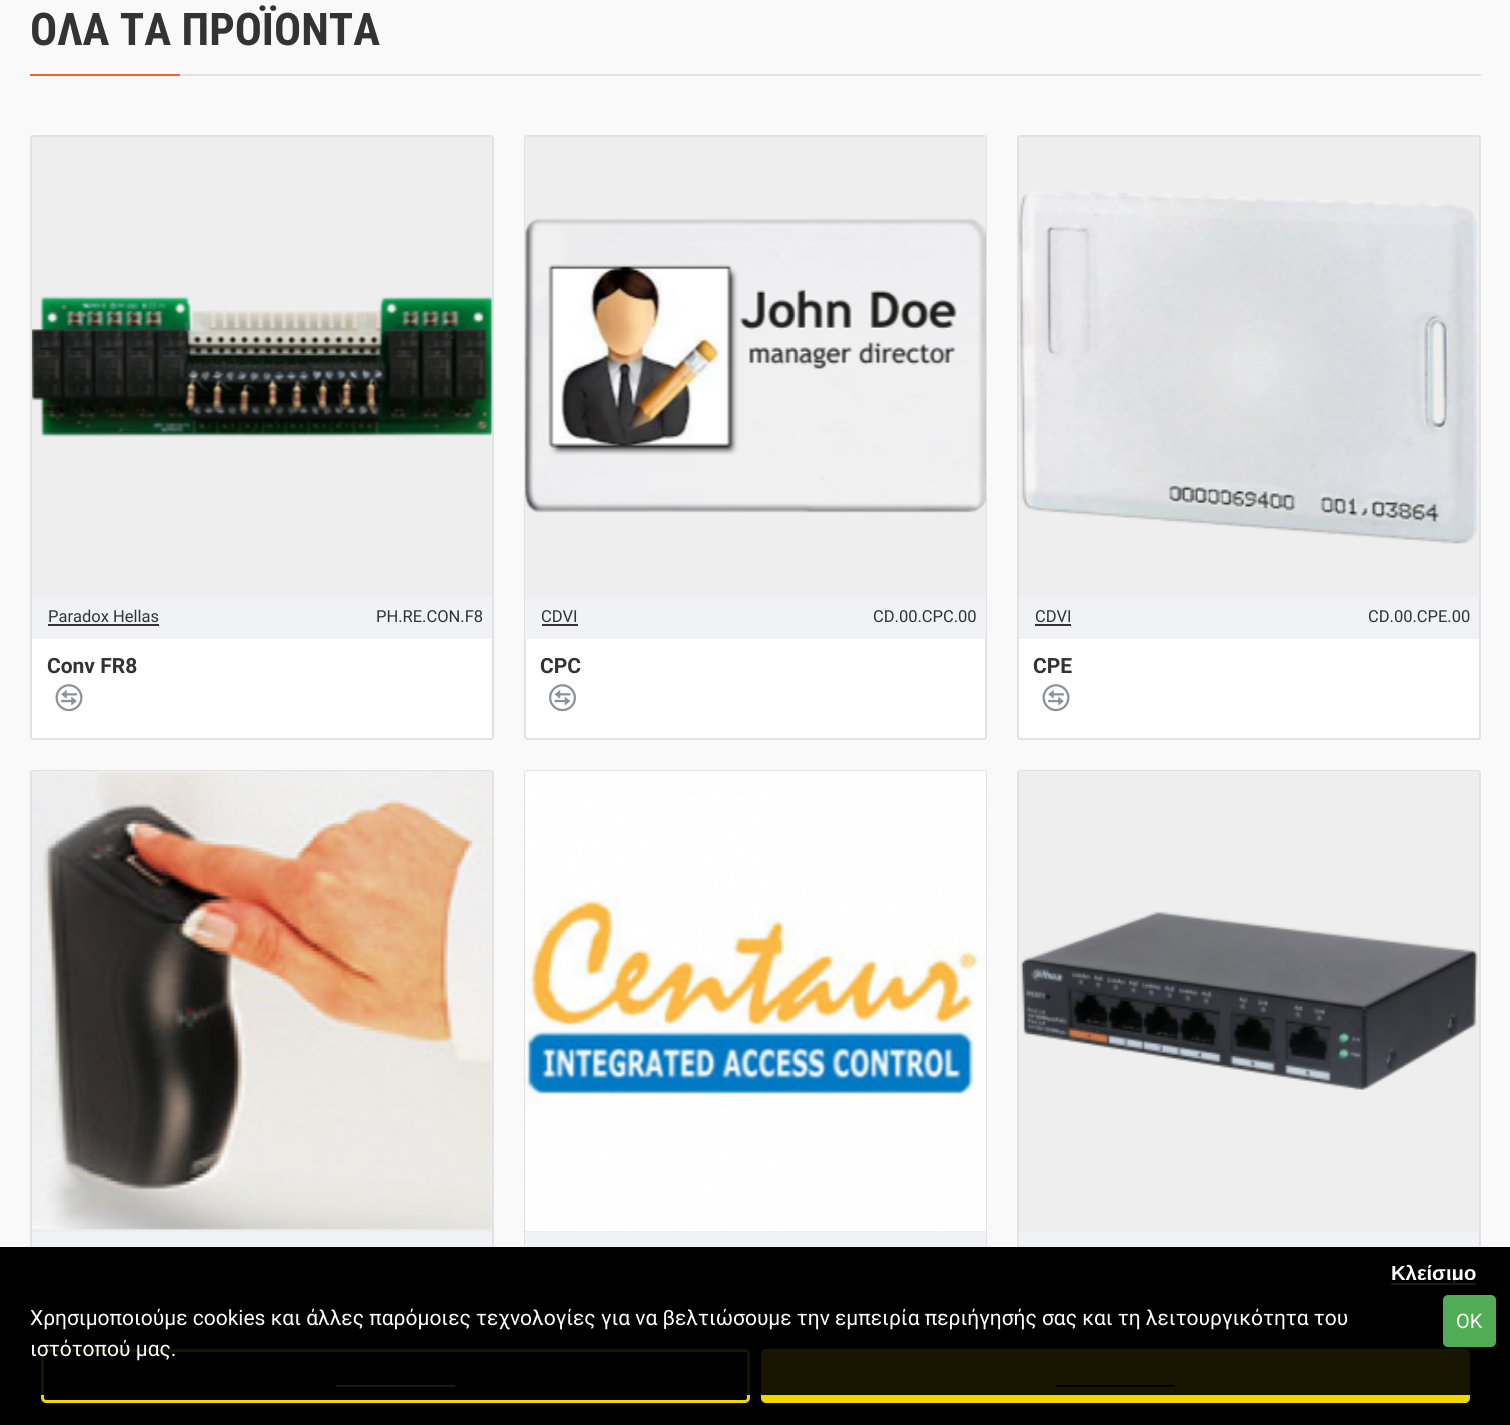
#include <cairo.h>
#include <math.h>
#include <stddef.h>


static void round_rect(cairo_t *cr, double x, double y, double w, double h, double r) {
    cairo_new_sub_path(cr);
    cairo_arc(cr, x + w - r, y + h - r, r, 0, M_PI / 2);
    cairo_arc(cr, x + r, y + h - r, r, M_PI / 2, M_PI);
    cairo_arc(cr, x + r, y + r, r, M_PI, 1.5 * M_PI);
    cairo_arc(cr, x + w - r, y + r, r, 1.5 * M_PI, 2 * M_PI);
    cairo_close_path(cr);
}

static void picture(cairo_t *cr, const char *path, double x, double y, double w, double h) {
    cairo_surface_t *image = cairo_image_surface_create_from_png(path);
    cairo_save(cr);
    cairo_set_source_surface(cr, image, x, y);
    cairo_rectangle(cr, x, y, w, h);
    cairo_fill(cr);
    cairo_restore(cr);
    cairo_surface_destroy(image);
}

int main(void) {
    cairo_surface_t *surface = cairo_image_surface_create(CAIRO_FORMAT_RGB24, 1510, 1425);
    cairo_t *cr = cairo_create(surface);
    cairo_font_options_t *options = cairo_font_options_create();
    cairo_font_options_set_hint_metrics(options, CAIRO_HINT_METRICS_OFF);
    cairo_font_options_set_hint_style(options, CAIRO_HINT_STYLE_NONE);
    cairo_set_font_options(cr, options);
    cairo_set_miter_limit(cr, 4);
    cairo_set_source_rgb(cr, 0.973, 0.973, 0.973);
    cairo_paint(cr);
    cairo_set_source_rgb(cr, 0.886, 0.886, 0.886);
    cairo_rectangle(cr, 180, 74, 1301, 2);
    cairo_fill(cr);
    cairo_select_font_face(cr, "Roboto Condensed", CAIRO_FONT_SLANT_NORMAL, CAIRO_FONT_WEIGHT_BOLD);
    cairo_set_font_size(cr, 45);
    cairo_set_source_rgb(cr, 0.2, 0.2, 0.2);
    cairo_move_to(cr, 30, 45);
    cairo_show_text(cr, "ΟΛΑ ΤΑ ΠΡΟΪΟΝΤΑ");
    cairo_set_source_rgb(cr, 0.914, 0.4, 0.192);
    cairo_rectangle(cr, 30, 74, 150, 2);
    cairo_fill(cr);
    cairo_set_source_rgb(cr, 1, 1, 1);
    round_rect(cr, 31, 136, 462, 603, 2);
    cairo_fill_preserve(cr);
    cairo_set_source_rgb(cr, 0.886, 0.886, 0.886);
    cairo_stroke(cr);
    cairo_set_source_rgb(cr, 0.933, 0.933, 0.933);
    cairo_new_path(cr);
    cairo_move_to(cr, 33.5, 137);
    cairo_line_to(cr, 490.5, 137);
    cairo_curve_to(cr, 491.5, 137, 492, 137.5, 492, 138.5);
    cairo_line_to(cr, 492, 597);
    cairo_line_to(cr, 32, 597);
    cairo_line_to(cr, 32, 138.5);
    cairo_curve_to(cr, 32, 137.5, 32.5, 137, 33.5, 137);
    cairo_close_path(cr);
    cairo_fill(cr);
    picture(cr, "img1.png", 32, 296, 461, 141);
    cairo_set_source_rgb(cr, 0.941, 0.949, 0.961);
    cairo_rectangle(cr, 32, 597, 460, 42);
    cairo_fill(cr);
    cairo_select_font_face(cr, "Roboto", CAIRO_FONT_SLANT_NORMAL, CAIRO_FONT_WEIGHT_NORMAL);
    cairo_set_font_size(cr, 16.5);
    cairo_set_source_rgb(cr, 0.2, 0.2, 0.2);
    cairo_move_to(cr, 48, 622);
    cairo_show_text(cr, "Paradox Hellas");
    cairo_rectangle(cr, 48, 624, 111, 2);
    cairo_fill(cr);
    cairo_move_to(cr, 376, 622);
    cairo_show_text(cr, "PH.RE.CON.F8");
    cairo_select_font_face(cr, "Roboto", CAIRO_FONT_SLANT_NORMAL, CAIRO_FONT_WEIGHT_BOLD);
    cairo_set_font_size(cr, 21);
    cairo_move_to(cr, 47, 673);
    cairo_show_text(cr, "Conv FR8");
    picture(cr, "img2.png", 55, 684, 28, 28);
    cairo_set_source_rgb(cr, 1, 1, 1);
    round_rect(cr, 525, 136, 461, 603, 2);
    cairo_fill_preserve(cr);
    cairo_set_source_rgb(cr, 0.886, 0.886, 0.886);
    cairo_stroke(cr);
    cairo_set_source_rgb(cr, 0.933, 0.933, 0.933);
    cairo_new_path(cr);
    cairo_move_to(cr, 526.5, 137);
    cairo_line_to(cr, 984.5, 137);
    cairo_curve_to(cr, 985.5, 137, 986, 137.5, 986, 138.5);
    cairo_line_to(cr, 986, 597);
    cairo_line_to(cr, 525, 597);
    cairo_line_to(cr, 525, 138.5);
    cairo_curve_to(cr, 525, 137.5, 525.5, 137, 526.5, 137);
    cairo_close_path(cr);
    cairo_fill(cr);
    picture(cr, "img3.png", 524, 218, 462, 295);
    cairo_set_source_rgb(cr, 0.941, 0.949, 0.961);
    cairo_rectangle(cr, 525, 597, 461, 42);
    cairo_fill(cr);
    cairo_select_font_face(cr, "Roboto", CAIRO_FONT_SLANT_NORMAL, CAIRO_FONT_WEIGHT_NORMAL);
    cairo_set_font_size(cr, 16.5);
    cairo_set_source_rgb(cr, 0.2, 0.2, 0.2);
    cairo_move_to(cr, 541, 622);
    cairo_show_text(cr, "CDVI");
    cairo_rectangle(cr, 542, 624, 36, 2);
    cairo_fill(cr);
    cairo_move_to(cr, 873, 622);
    cairo_show_text(cr, "CD.00.CPC.00");
    cairo_select_font_face(cr, "Roboto", CAIRO_FONT_SLANT_NORMAL, CAIRO_FONT_WEIGHT_BOLD);
    cairo_set_font_size(cr, 21);
    cairo_move_to(cr, 540, 673);
    cairo_show_text(cr, "CPC");
    picture(cr, "img4.png", 549, 684, 27, 28);
    cairo_set_source_rgb(cr, 1, 1, 1);
    round_rect(cr, 1018, 136, 462, 603, 2);
    cairo_fill_preserve(cr);
    cairo_set_source_rgb(cr, 0.886, 0.886, 0.886);
    cairo_stroke(cr);
    cairo_set_source_rgb(cr, 0.933, 0.933, 0.933);
    cairo_new_path(cr);
    cairo_move_to(cr, 1020.5, 137);
    cairo_line_to(cr, 1477.5, 137);
    cairo_curve_to(cr, 1478.5, 137, 1479, 137.5, 1479, 138.5);
    cairo_line_to(cr, 1479, 597);
    cairo_line_to(cr, 1019, 597);
    cairo_line_to(cr, 1019, 138.5);
    cairo_curve_to(cr, 1019, 137.5, 1019.5, 137, 1020.5, 137);
    cairo_close_path(cr);
    cairo_fill(cr);
    picture(cr, "img5.png", 1018, 191, 460, 353);
    cairo_set_source_rgb(cr, 0.941, 0.949, 0.961);
    cairo_rectangle(cr, 1019, 597, 460, 42);
    cairo_fill(cr);
    cairo_select_font_face(cr, "Roboto", CAIRO_FONT_SLANT_NORMAL, CAIRO_FONT_WEIGHT_NORMAL);
    cairo_set_font_size(cr, 16.5);
    cairo_set_source_rgb(cr, 0.2, 0.2, 0.2);
    cairo_move_to(cr, 1035, 622);
    cairo_show_text(cr, "CDVI");
    cairo_rectangle(cr, 1035, 624, 36, 2);
    cairo_fill(cr);
    cairo_move_to(cr, 1368, 622);
    cairo_show_text(cr, "CD.00.CPE.00");
    cairo_select_font_face(cr, "Roboto", CAIRO_FONT_SLANT_NORMAL, CAIRO_FONT_WEIGHT_BOLD);
    cairo_set_font_size(cr, 21);
    cairo_move_to(cr, 1033, 673);
    cairo_show_text(cr, "CPE");
    picture(cr, "img2.png", 1042, 684, 28, 28);
    round_rect(cr, 31, 771, 462, 601, 2);
    cairo_set_source_rgb(cr, 0.886, 0.886, 0.886);
    cairo_stroke(cr);
    cairo_set_source_rgb(cr, 0.933, 0.933, 0.933);
    cairo_new_path(cr);
    cairo_move_to(cr, 33.5, 771);
    cairo_line_to(cr, 490.5, 771);
    cairo_curve_to(cr, 491.5, 771, 492, 771.5, 492, 772.5);
    cairo_line_to(cr, 492, 1232);
    cairo_line_to(cr, 32, 1232);
    cairo_line_to(cr, 32, 772.5);
    cairo_curve_to(cr, 32, 771.5, 32.5, 771, 33.5, 771);
    cairo_close_path(cr);
    cairo_fill(cr);
    picture(cr, "img6.png", 32, 772, 460, 458);
    cairo_set_source_rgb(cr, 0.941, 0.949, 0.961);
    cairo_rectangle(cr, 32, 1232, 460, 15);
    cairo_fill(cr);
    round_rect(cr, 525, 771, 461, 601, 2);
    cairo_set_source_rgb(cr, 0.886, 0.886, 0.886);
    cairo_stroke(cr);
    cairo_set_source_rgb(cr, 0.933, 0.933, 0.933);
    cairo_new_path(cr);
    cairo_move_to(cr, 526.5, 771);
    cairo_line_to(cr, 984.5, 771);
    cairo_curve_to(cr, 985.5, 771, 986, 771.5, 986, 772.5);
    cairo_line_to(cr, 986, 1232);
    cairo_line_to(cr, 525, 1232);
    cairo_line_to(cr, 525, 772.5);
    cairo_curve_to(cr, 525, 771.5, 525.5, 771, 526.5, 771);
    cairo_close_path(cr);
    cairo_fill(cr);
    picture(cr, "img7.png", 525, 771, 461, 460);
    cairo_set_source_rgb(cr, 0.941, 0.949, 0.961);
    cairo_rectangle(cr, 525, 1232, 461, 15);
    cairo_fill(cr);
    round_rect(cr, 1018, 771, 462, 601, 2);
    cairo_set_source_rgb(cr, 0.886, 0.886, 0.886);
    cairo_stroke(cr);
    cairo_set_source_rgb(cr, 0.933, 0.933, 0.933);
    cairo_new_path(cr);
    cairo_move_to(cr, 1020.5, 771);
    cairo_line_to(cr, 1477.5, 771);
    cairo_curve_to(cr, 1478.5, 771, 1479, 771.5, 1479, 772.5);
    cairo_line_to(cr, 1479, 1232);
    cairo_line_to(cr, 1019, 1232);
    cairo_line_to(cr, 1019, 772.5);
    cairo_curve_to(cr, 1019, 771.5, 1019.5, 771, 1020.5, 771);
    cairo_close_path(cr);
    cairo_fill(cr);
    picture(cr, "img8.png", 1020, 911, 458, 179);
    cairo_set_source_rgb(cr, 0.941, 0.949, 0.961);
    cairo_rectangle(cr, 1019, 1232, 460, 15);
    cairo_fill(cr);
    cairo_set_source_rgb(cr, 0, 0, 0);
    cairo_rectangle(cr, 0, 1247, 1510, 178);
    cairo_fill(cr);
    cairo_set_source_rgb(cr, 1, 1, 1);
    cairo_rectangle(cr, 1391, 1283, 85, 2);
    cairo_fill(cr);
    cairo_select_font_face(cr, "Liberation Sans", CAIRO_FONT_SLANT_NORMAL, CAIRO_FONT_WEIGHT_BOLD);
    cairo_set_font_size(cr, 20.25);
    cairo_move_to(cr, 1391, 1280);
    cairo_show_text(cr, "Κλείσιμο");
    round_rect(cr, 42.5, 1350.5, 706, 51, 3.5);
    cairo_set_source_rgb(cr, 0.945, 0.839, 0);
    cairo_set_line_width(cr, 3);
    cairo_stroke(cr);
    cairo_set_source_rgb(cr, 1, 1, 1);
    cairo_rectangle(cr, 336, 1385, 119, 2);
    cairo_fill(cr);
    cairo_set_source_rgb(cr, 0.945, 0.839, 0);
    round_rect(cr, 761, 1349, 709, 54, 5);
    cairo_fill(cr);
    cairo_set_source_rgb(cr, 0, 0, 0);
    cairo_rectangle(cr, 1056, 1385, 119, 2);
    cairo_fill(cr);
    cairo_set_source_rgba(cr, 0, 0, 0, 0.9);
    round_rect(cr, 0, 1280, 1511, 115, 3);
    cairo_fill(cr);
    cairo_select_font_face(cr, "Roboto", CAIRO_FONT_SLANT_NORMAL, CAIRO_FONT_WEIGHT_NORMAL);
    cairo_set_font_size(cr, 21);
    cairo_set_source_rgb(cr, 1, 1, 1);
    cairo_move_to(cr, 30, 1325);
    cairo_show_text(cr, "Χρησιμοποιούμε cookies και άλλες παρόμοιες τεχνολογίες για να βελτιώσουμε την εμπειρία περιήγησής σας και τη λειτουργικότητα του");
    cairo_move_to(cr, 30, 1356);
    cairo_show_text(cr, "ιστότοπού μας.");
    cairo_set_source_rgb(cr, 0.314, 0.678, 0.333);
    round_rect(cr, 1443, 1295, 53, 52, 5);
    cairo_fill(cr);
    cairo_set_font_size(cr, 20);
    cairo_set_source_rgb(cr, 1, 1, 1);
    cairo_move_to(cr, 1456, 1328);
    cairo_show_text(cr, "ΟΚ");
    cairo_surface_write_to_png(surface, "page.png");
    cairo_font_options_destroy(options);
    cairo_destroy(cr);
    cairo_surface_destroy(surface);
    return 0;
}
